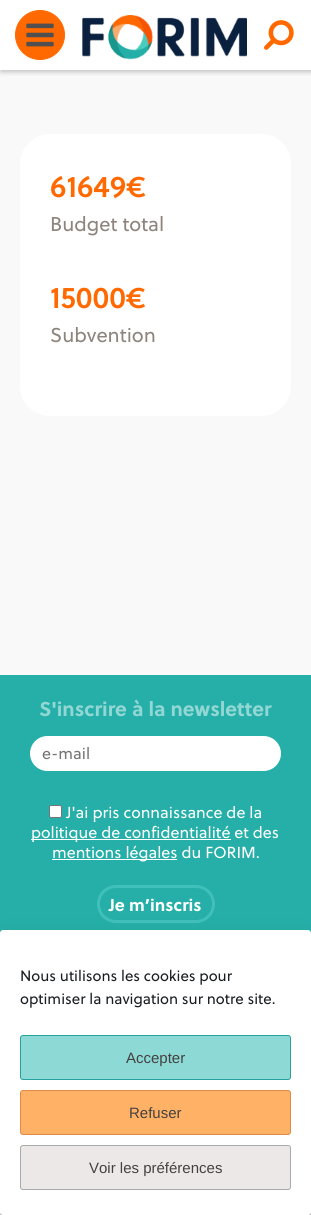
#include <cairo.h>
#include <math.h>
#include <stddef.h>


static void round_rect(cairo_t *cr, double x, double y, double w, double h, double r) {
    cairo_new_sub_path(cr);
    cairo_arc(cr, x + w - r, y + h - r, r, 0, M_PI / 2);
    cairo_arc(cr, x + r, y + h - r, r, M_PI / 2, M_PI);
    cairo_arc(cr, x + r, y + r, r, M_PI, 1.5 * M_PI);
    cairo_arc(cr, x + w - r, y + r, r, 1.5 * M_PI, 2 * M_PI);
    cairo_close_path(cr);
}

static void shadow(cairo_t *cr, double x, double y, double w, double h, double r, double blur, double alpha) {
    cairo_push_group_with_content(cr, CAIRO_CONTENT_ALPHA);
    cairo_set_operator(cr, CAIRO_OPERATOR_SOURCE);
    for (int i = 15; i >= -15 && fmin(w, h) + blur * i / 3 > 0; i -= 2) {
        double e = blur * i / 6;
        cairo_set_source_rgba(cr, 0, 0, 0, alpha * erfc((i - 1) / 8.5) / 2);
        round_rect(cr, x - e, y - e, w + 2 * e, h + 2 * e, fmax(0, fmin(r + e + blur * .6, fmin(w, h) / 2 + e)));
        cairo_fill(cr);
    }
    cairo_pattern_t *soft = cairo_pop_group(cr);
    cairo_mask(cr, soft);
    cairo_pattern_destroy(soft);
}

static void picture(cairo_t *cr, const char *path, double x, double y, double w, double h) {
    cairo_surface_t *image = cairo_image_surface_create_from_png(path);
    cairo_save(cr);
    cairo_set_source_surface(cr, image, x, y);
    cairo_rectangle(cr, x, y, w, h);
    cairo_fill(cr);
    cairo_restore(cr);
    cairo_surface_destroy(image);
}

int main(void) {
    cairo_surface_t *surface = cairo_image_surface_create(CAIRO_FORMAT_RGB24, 311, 1215);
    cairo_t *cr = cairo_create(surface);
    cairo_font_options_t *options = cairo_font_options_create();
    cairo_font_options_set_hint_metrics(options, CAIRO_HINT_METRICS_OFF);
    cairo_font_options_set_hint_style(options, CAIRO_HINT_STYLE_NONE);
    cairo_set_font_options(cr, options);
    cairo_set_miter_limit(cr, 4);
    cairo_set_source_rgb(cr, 0.976, 0.976, 0.976);
    cairo_paint(cr);
    cairo_set_source_rgb(cr, 0, 0, 0);
    shadow(cr, 1, 2, 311, 70, 0, 2.5, 0.23);
    cairo_set_source_rgb(cr, 1, 1, 1);
    cairo_rectangle(cr, 0, 0, 311, 70);
    cairo_fill(cr);
    cairo_set_source_rgb(cr, 1, 0.412, 0);
    cairo_arc(cr, 40, 35, 24.5, 0, 2 * M_PI);
    cairo_fill_preserve(cr);
    cairo_set_line_width(cr, 1);
    cairo_stroke(cr);
    picture(cr, "img1.png", 26, 23, 28, 24);
    picture(cr, "img2.png", 82, 15, 165, 45);
    picture(cr, "img3.png", 264, 20, 30, 30);
    cairo_set_source_rgb(cr, 1, 1, 1);
    round_rect(cr, 20, 134, 271, 282, 30);
    cairo_fill(cr);
    cairo_select_font_face(cr, "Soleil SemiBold", CAIRO_FONT_SLANT_NORMAL, CAIRO_FONT_WEIGHT_NORMAL);
    cairo_set_font_size(cr, 30);
    cairo_set_source_rgb(cr, 1, 0.412, 0);
    cairo_move_to(cr, 50, 197);
    cairo_show_text(cr, "61649€");
    cairo_select_font_face(cr, "Soleil", CAIRO_FONT_SLANT_NORMAL, CAIRO_FONT_WEIGHT_NORMAL);
    cairo_set_font_size(cr, 20);
    cairo_set_source_rgb(cr, 0.557, 0.518, 0.49);
    cairo_move_to(cr, 50, 231);
    cairo_show_text(cr, "Budget total");
    cairo_select_font_face(cr, "Soleil SemiBold", CAIRO_FONT_SLANT_NORMAL, CAIRO_FONT_WEIGHT_NORMAL);
    cairo_set_font_size(cr, 30);
    cairo_set_source_rgb(cr, 1, 0.412, 0);
    cairo_move_to(cr, 50, 308);
    cairo_show_text(cr, "15000€");
    cairo_select_font_face(cr, "Soleil", CAIRO_FONT_SLANT_NORMAL, CAIRO_FONT_WEIGHT_NORMAL);
    cairo_set_font_size(cr, 20);
    cairo_set_source_rgb(cr, 0.557, 0.518, 0.49);
    cairo_move_to(cr, 50, 342);
    cairo_show_text(cr, "Subvention");
    cairo_set_source_rgb(cr, 0.145, 0.686, 0.659);
    cairo_rectangle(cr, 0, 675, 311, 258);
    cairo_fill(cr);
    cairo_select_font_face(cr, "Soleil", CAIRO_FONT_SLANT_NORMAL, CAIRO_FONT_WEIGHT_BOLD);
    cairo_set_source_rgb(cr, 0.573, 0.843, 0.831);
    cairo_move_to(cr, 39, 716);
    cairo_show_text(cr, "S'inscrire à la newsletter");
    cairo_set_source_rgb(cr, 1, 1, 1);
    round_rect(cr, 30, 736, 251, 35, 17.5);
    cairo_fill(cr);
    cairo_select_font_face(cr, "Soleil", CAIRO_FONT_SLANT_NORMAL, CAIRO_FONT_WEIGHT_NORMAL);
    cairo_set_font_size(cr, 16);
    cairo_set_source_rgb(cr, 0.459, 0.459, 0.459);
    cairo_move_to(cr, 42, 759);
    cairo_show_text(cr, "e-mail");
    round_rect(cr, 98.5, 886.5, 115, 35, 17.5);
    cairo_set_source_rgb(cr, 0.255, 0.749, 0.729);
    cairo_set_line_width(cr, 3);
    cairo_stroke(cr);
    cairo_select_font_face(cr, "Soleil", CAIRO_FONT_SLANT_NORMAL, CAIRO_FONT_WEIGHT_BOLD);
    cairo_set_font_size(cr, 17);
    cairo_set_source_rgb(cr, 1, 1, 1);
    cairo_move_to(cr, 109, 911);
    cairo_show_text(cr, "Je m’inscris");
    round_rect(cr, 49.5, 805.5, 12, 12, 1.5);
    cairo_fill_preserve(cr);
    cairo_set_source_rgb(cr, 0.463, 0.463, 0.463);
    cairo_set_line_width(cr, 1);
    cairo_stroke(cr);
    cairo_select_font_face(cr, "Soleil", CAIRO_FONT_SLANT_NORMAL, CAIRO_FONT_WEIGHT_NORMAL);
    cairo_set_font_size(cr, 16);
    cairo_set_source_rgb(cr, 1, 1, 1);
    cairo_move_to(cr, 66, 818);
    cairo_show_text(cr, "J'ai pris connaissance de la");
    cairo_rectangle(cr, 31, 839, 200, 1);
    cairo_fill(cr);
    cairo_move_to(cr, 31, 838);
    cairo_show_text(cr, "politique de confidentialité et des");
    cairo_rectangle(cr, 52, 859, 125, 1);
    cairo_fill(cr);
    cairo_move_to(cr, 52, 858);
    cairo_show_text(cr, "mentions légales du FORIM.");
    cairo_set_source_rgb(cr, 0.937, 0.937, 0.937);
    cairo_rectangle(cr, 0, 1212, 311, 3);
    cairo_fill(cr);
    cairo_set_source_rgb(cr, 0, 0, 0);
    shadow(cr, 0, 936, 311, 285, 3, 3, 0.23);
    shadow(cr, 0, 940, 311, 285, 3, 10, 0.19);
    cairo_set_source_rgb(cr, 1, 1, 1);
    round_rect(cr, 0, 930, 311, 285, 3);
    cairo_fill(cr);
    cairo_set_font_size(cr, 15);
    cairo_set_source_rgb(cr, 0.098, 0.118, 0.137);
    cairo_move_to(cr, 20, 981);
    cairo_show_text(cr, "Nous utilisons les cookies pour");
    cairo_move_to(cr, 20, 1004);
    cairo_show_text(cr, "optimiser la navigation sur notre site.");
    cairo_set_source_rgb(cr, 0.549, 0.851, 0.835);
    round_rect(cr, 20.5, 1035.5, 270, 44, 2.5);
    cairo_fill_preserve(cr);
    cairo_set_source_rgb(cr, 0.145, 0.635, 0.616);
    cairo_stroke(cr);
    cairo_select_font_face(cr, "Liberation Sans", CAIRO_FONT_SLANT_NORMAL, CAIRO_FONT_WEIGHT_NORMAL);
    cairo_set_source_rgb(cr, 0.267, 0.255, 0.255);
    cairo_move_to(cr, 126, 1063);
    cairo_show_text(cr, "Accepter");
    cairo_set_source_rgb(cr, 1, 0.698, 0.4);
    round_rect(cr, 20.5, 1090.5, 270, 44, 2.5);
    cairo_fill_preserve(cr);
    cairo_set_source_rgb(cr, 0.871, 0.545, 0.29);
    cairo_stroke(cr);
    cairo_set_source_rgb(cr, 0.267, 0.255, 0.255);
    cairo_move_to(cr, 129, 1118);
    cairo_show_text(cr, "Refuser");
    cairo_set_source_rgb(cr, 0.925, 0.91, 0.91);
    round_rect(cr, 20.5, 1145.5, 270, 44, 2.5);
    cairo_fill_preserve(cr);
    cairo_set_source_rgb(cr, 0.667, 0.667, 0.667);
    cairo_stroke(cr);
    cairo_set_source_rgb(cr, 0.267, 0.255, 0.255);
    cairo_move_to(cr, 89, 1173);
    cairo_show_text(cr, "Voir les préférences");
    cairo_surface_write_to_png(surface, "page.png");
    cairo_font_options_destroy(options);
    cairo_destroy(cr);
    cairo_surface_destroy(surface);
    return 0;
}
